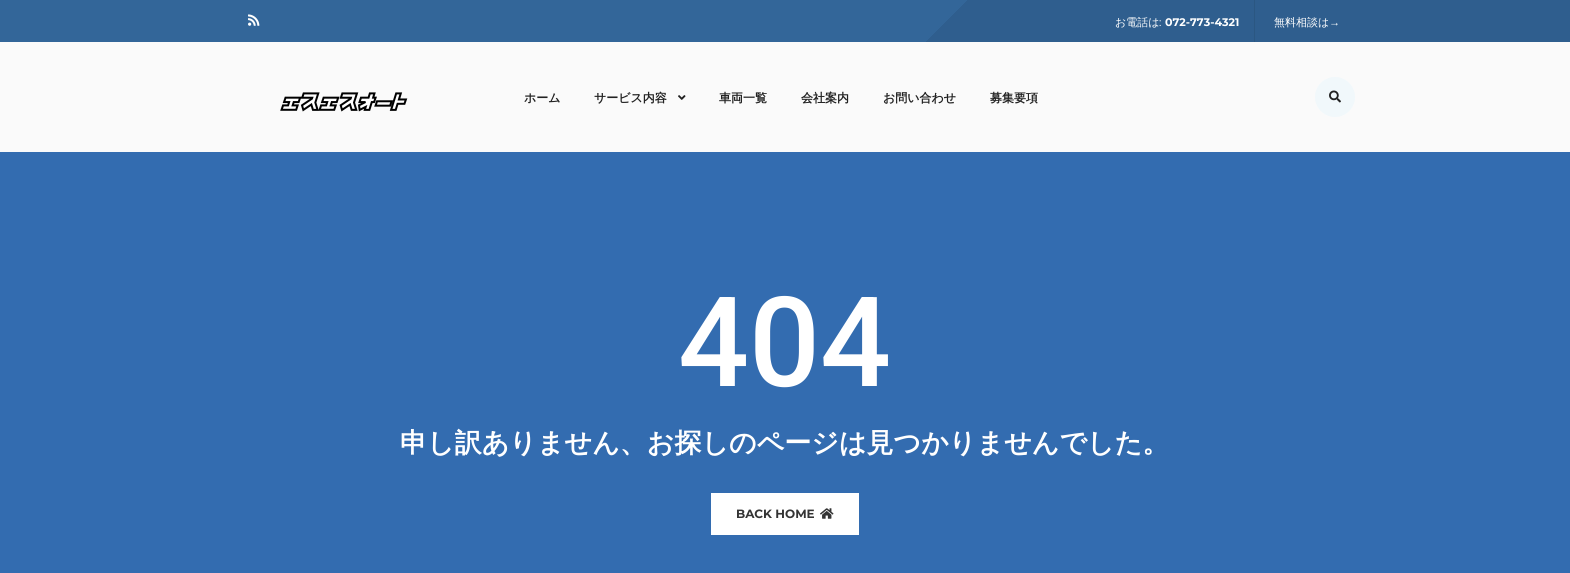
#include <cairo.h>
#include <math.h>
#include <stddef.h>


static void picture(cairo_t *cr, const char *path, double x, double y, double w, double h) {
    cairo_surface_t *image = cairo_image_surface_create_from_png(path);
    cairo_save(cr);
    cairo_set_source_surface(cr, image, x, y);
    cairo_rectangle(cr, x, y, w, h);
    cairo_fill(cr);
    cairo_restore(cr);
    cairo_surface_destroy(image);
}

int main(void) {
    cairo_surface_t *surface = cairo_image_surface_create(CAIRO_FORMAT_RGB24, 1570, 573);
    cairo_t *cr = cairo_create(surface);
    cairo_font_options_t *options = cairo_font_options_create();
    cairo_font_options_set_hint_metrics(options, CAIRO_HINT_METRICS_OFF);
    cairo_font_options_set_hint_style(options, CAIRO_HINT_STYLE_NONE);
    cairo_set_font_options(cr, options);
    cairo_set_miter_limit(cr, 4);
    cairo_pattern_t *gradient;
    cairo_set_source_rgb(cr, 1, 1, 1);
    cairo_paint(cr);
    gradient = cairo_pattern_create_linear(1188, 424, 382, -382);
    cairo_pattern_add_color_stop_rgba(gradient, 0.4, 0.184, 0.369, 0.557, 1);
    cairo_pattern_add_color_stop_rgba(gradient, 0.4, 0.2, 0.4, 0.6, 1);
    cairo_set_source(cr, gradient);
    cairo_pattern_destroy(gradient);
    cairo_rectangle(cr, 0, 0, 1570, 42);
    cairo_fill(cr);
    picture(cr, "img1.png", 248, 14, 12, 12);
    cairo_set_source_rgb(cr, 0.169, 0.341, 0.51);
    cairo_rectangle(cr, 1254, 0, 1, 46);
    cairo_fill(cr);
    cairo_select_font_face(cr, "WenQuanYi Zen Hei Medium", CAIRO_FONT_SLANT_NORMAL, CAIRO_FONT_WEIGHT_NORMAL);
    cairo_set_font_size(cr, 11);
    cairo_set_source_rgb(cr, 1, 1, 1);
    cairo_move_to(cr, 1115, 26);
    cairo_show_text(cr, "お電話は");
    cairo_select_font_face(cr, "Montserrat", CAIRO_FONT_SLANT_NORMAL, CAIRO_FONT_WEIGHT_NORMAL);
    cairo_move_to(cr, 1159, 26);
    cairo_show_text(cr, ":");
    cairo_select_font_face(cr, "Montserrat", CAIRO_FONT_SLANT_NORMAL, CAIRO_FONT_WEIGHT_BOLD);
    cairo_move_to(cr, 1165, 26);
    cairo_show_text(cr, "072-773-4321");
    cairo_select_font_face(cr, "WenQuanYi Zen Hei Medium", CAIRO_FONT_SLANT_NORMAL, CAIRO_FONT_WEIGHT_NORMAL);
    cairo_move_to(cr, 1274, 26);
    cairo_show_text(cr, "無料相談は");
    cairo_select_font_face(cr, "Liberation Sans", CAIRO_FONT_SLANT_NORMAL, CAIRO_FONT_WEIGHT_NORMAL);
    cairo_move_to(cr, 1329, 26);
    cairo_show_text(cr, "→");
    cairo_set_source_rgb(cr, 0.98, 0.98, 0.98);
    cairo_rectangle(cr, 0, 42, 1570, 110);
    cairo_fill(cr);
    picture(cr, "img2.png", 280, 92, 128, 20);
    cairo_select_font_face(cr, "WenQuanYi Zen Hei", CAIRO_FONT_SLANT_NORMAL, CAIRO_FONT_WEIGHT_BOLD);
    cairo_set_font_size(cr, 12);
    cairo_set_source_rgb(cr, 0.133, 0.133, 0.133);
    cairo_move_to(cr, 524, 102);
    cairo_show_text(cr, "ホーム");
    cairo_move_to(cr, 594, 102);
    cairo_show_text(cr, "サービス内容");
    picture(cr, "img3.png", 678, 95, 8, 5);
    cairo_move_to(cr, 719, 102);
    cairo_show_text(cr, "車両一覧");
    cairo_move_to(cr, 801, 102);
    cairo_show_text(cr, "会社案内");
    cairo_move_to(cr, 883, 102);
    cairo_show_text(cr, "お問い合わせ");
    cairo_move_to(cr, 990, 102);
    cairo_show_text(cr, "募集要項");
    cairo_set_source_rgb(cr, 0.945, 0.969, 0.984);
    cairo_new_path(cr);
    cairo_arc(cr, 1335, 97, 20, 0, 2 * M_PI);
    cairo_fill(cr);
    picture(cr, "img4.png", 1329, 90, 12, 13);
    cairo_set_source_rgb(cr, 0.2, 0.424, 0.69);
    cairo_rectangle(cr, 0, 152, 1570, 421);
    cairo_fill(cr);
    cairo_select_font_face(cr, "Roboto Medium", CAIRO_FONT_SLANT_NORMAL, CAIRO_FONT_WEIGHT_NORMAL);
    cairo_set_font_size(cr, 125);
    cairo_set_source_rgb(cr, 1, 1, 1);
    cairo_move_to(cr, 678, 386);
    cairo_show_text(cr, "404");
    cairo_select_font_face(cr, "WenQuanYi Zen Hei", CAIRO_FONT_SLANT_NORMAL, CAIRO_FONT_WEIGHT_BOLD);
    cairo_set_font_size(cr, 27);
    cairo_move_to(cr, 400, 452);
    cairo_show_text(cr, "申し訳ありません、お探しのページは見つかりませんでした。");
    cairo_rectangle(cr, 711, 493, 148, 42);
    cairo_fill(cr);
    cairo_select_font_face(cr, "Montserrat", CAIRO_FONT_SLANT_NORMAL, CAIRO_FONT_WEIGHT_BOLD);
    cairo_set_font_size(cr, 12);
    cairo_set_source_rgb(cr, 0.204, 0.204, 0.204);
    cairo_move_to(cr, 736, 518);
    cairo_show_text(cr, "BACK HOME");
    picture(cr, "img5.png", 820, 508, 14, 11);
    cairo_surface_write_to_png(surface, "page.png");
    cairo_font_options_destroy(options);
    cairo_destroy(cr);
    cairo_surface_destroy(surface);
    return 0;
}
